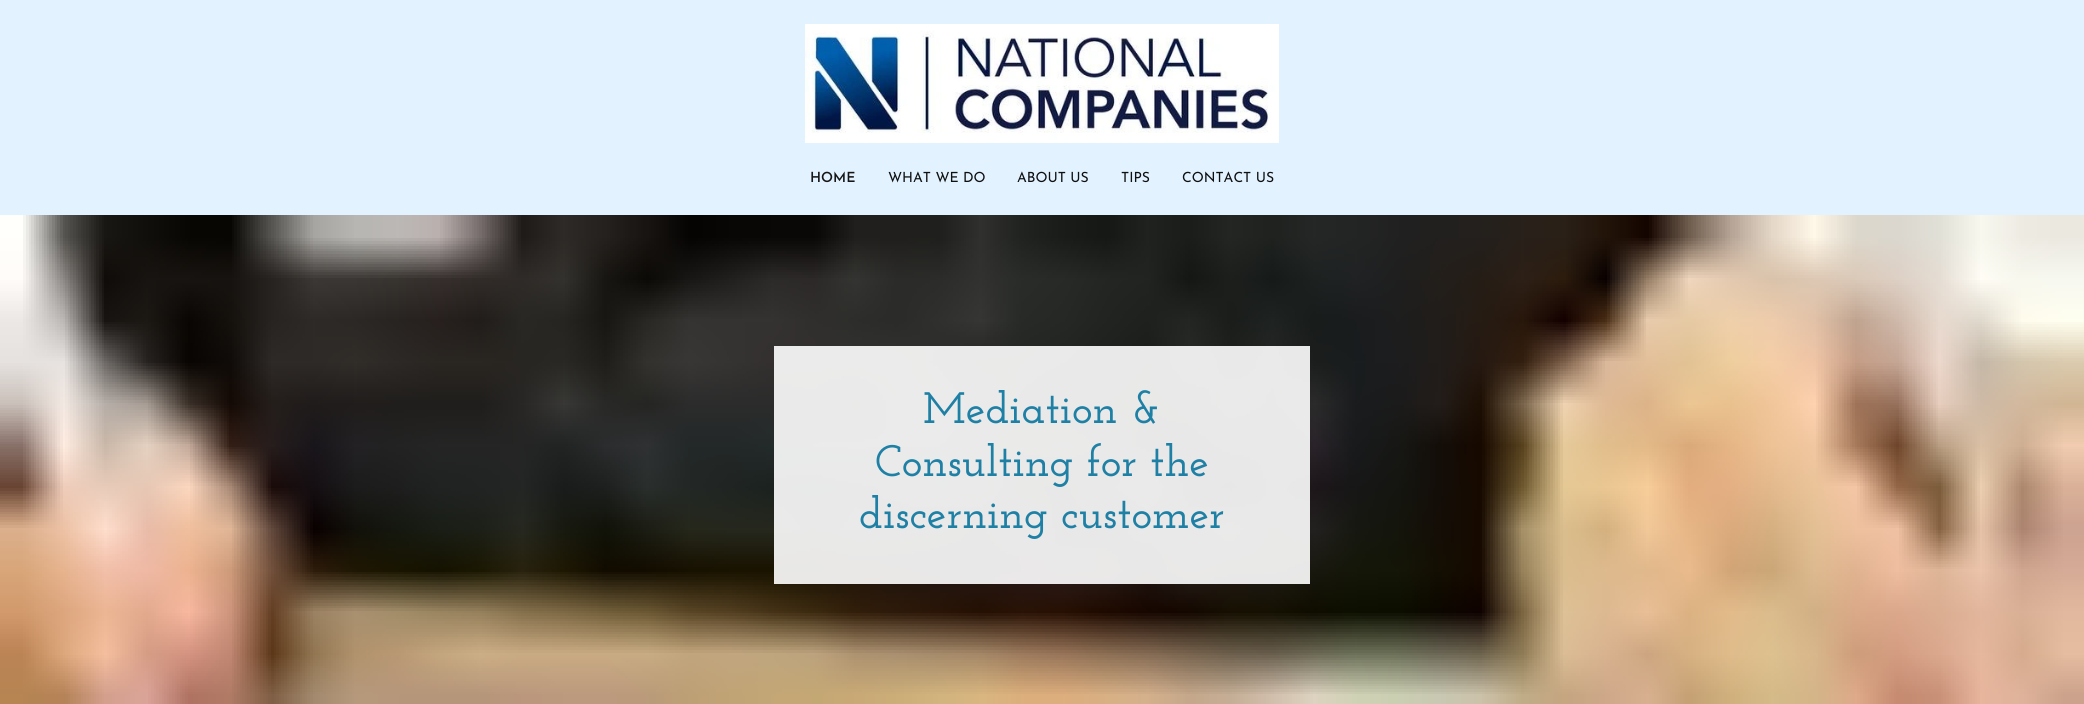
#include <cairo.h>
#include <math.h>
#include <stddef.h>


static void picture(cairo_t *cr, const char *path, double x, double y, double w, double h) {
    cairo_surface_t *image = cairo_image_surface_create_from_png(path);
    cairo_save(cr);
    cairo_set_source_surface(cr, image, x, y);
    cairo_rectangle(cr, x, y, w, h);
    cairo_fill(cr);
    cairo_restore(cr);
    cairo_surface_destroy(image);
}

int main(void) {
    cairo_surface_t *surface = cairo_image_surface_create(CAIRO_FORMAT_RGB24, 2084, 704);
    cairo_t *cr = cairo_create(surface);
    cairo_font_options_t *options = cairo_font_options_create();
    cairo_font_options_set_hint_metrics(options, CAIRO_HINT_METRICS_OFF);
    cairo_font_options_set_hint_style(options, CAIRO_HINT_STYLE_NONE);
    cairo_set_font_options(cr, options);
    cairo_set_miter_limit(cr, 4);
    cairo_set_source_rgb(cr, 0.886, 0.949, 0.996);
    cairo_paint(cr);
    picture(cr, "img1.png", 805, 24, 474, 119);
    cairo_select_font_face(cr, "Josefin Sans SemiBold", CAIRO_FONT_SLANT_NORMAL, CAIRO_FONT_WEIGHT_NORMAL);
    cairo_set_font_size(cr, 14);
    cairo_set_source_rgb(cr, 0.086, 0.086, 0.086);
    cairo_move_to(cr, 810, 182);
    cairo_show_text(cr, "HOME");
    cairo_select_font_face(cr, "Josefin Sans", CAIRO_FONT_SLANT_NORMAL, CAIRO_FONT_WEIGHT_NORMAL);
    cairo_set_source_rgb(cr, 0.059, 0.063, 0.067);
    cairo_move_to(cr, 888, 182);
    cairo_show_text(cr, "WHAT WE DO");
    cairo_move_to(cr, 1017, 182);
    cairo_show_text(cr, "ABOUT US");
    cairo_move_to(cr, 1121, 182);
    cairo_show_text(cr, "TIPS");
    cairo_move_to(cr, 1182, 182);
    cairo_show_text(cr, "CONTACT US");
    picture(cr, "img2.png", 0, 215, 2084, 489);
    cairo_set_source_rgba(cr, 1, 1, 1, 0.9);
    cairo_rectangle(cr, 774, 346, 536, 238);
    cairo_fill(cr);
    cairo_select_font_face(cr, "Josefin Slab Thin", CAIRO_FONT_SLANT_NORMAL, CAIRO_FONT_WEIGHT_NORMAL);
    cairo_set_font_size(cr, 44);
    cairo_set_source_rgb(cr, 0.122, 0.502, 0.647);
    cairo_move_to(cr, 923, 423);
    cairo_show_text(cr, "Mediation &");
    cairo_move_to(cr, 875, 476);
    cairo_show_text(cr, "Consulting for the");
    cairo_move_to(cr, 859, 528);
    cairo_show_text(cr, "discerning customer");
    cairo_surface_write_to_png(surface, "page.png");
    cairo_font_options_destroy(options);
    cairo_destroy(cr);
    cairo_surface_destroy(surface);
    return 0;
}
